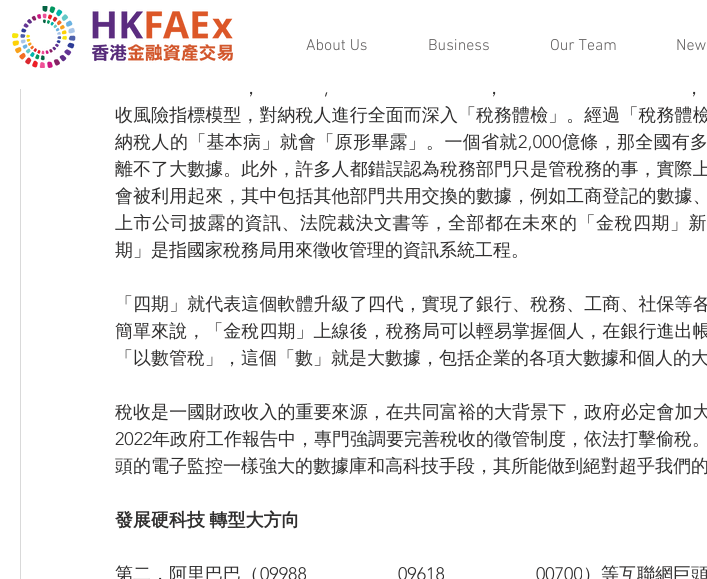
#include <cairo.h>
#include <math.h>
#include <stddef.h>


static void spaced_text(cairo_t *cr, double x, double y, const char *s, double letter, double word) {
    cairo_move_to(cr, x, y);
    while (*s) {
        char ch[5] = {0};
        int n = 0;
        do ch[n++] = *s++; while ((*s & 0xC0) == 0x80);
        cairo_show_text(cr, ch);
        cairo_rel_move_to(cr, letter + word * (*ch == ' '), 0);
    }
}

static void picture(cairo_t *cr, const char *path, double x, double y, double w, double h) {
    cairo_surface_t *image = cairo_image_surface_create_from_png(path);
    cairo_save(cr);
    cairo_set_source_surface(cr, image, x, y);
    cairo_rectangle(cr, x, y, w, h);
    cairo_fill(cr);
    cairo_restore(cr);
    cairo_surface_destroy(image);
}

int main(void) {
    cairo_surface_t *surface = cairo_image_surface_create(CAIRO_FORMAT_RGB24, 707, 579);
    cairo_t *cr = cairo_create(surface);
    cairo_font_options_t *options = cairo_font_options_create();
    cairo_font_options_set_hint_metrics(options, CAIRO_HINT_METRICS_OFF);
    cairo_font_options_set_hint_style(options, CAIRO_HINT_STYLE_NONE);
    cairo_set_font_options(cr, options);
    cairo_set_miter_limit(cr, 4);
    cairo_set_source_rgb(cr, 1, 1, 1);
    cairo_paint(cr);
    cairo_rectangle(cr, 20.5, -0.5, 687, 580);
    cairo_set_source_rgb(cr, 0.851, 0.851, 0.851);
    cairo_set_line_width(cr, 1);
    cairo_stroke(cr);
    cairo_set_source_rgb(cr, 1, 1, 1);
    cairo_rectangle(cr, 20, 0, 1, 89);
    cairo_fill(cr);
    picture(cr, "img1.png", 12, 6, 221, 62);
    cairo_select_font_face(cr, "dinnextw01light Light", CAIRO_FONT_SLANT_NORMAL, CAIRO_FONT_WEIGHT_NORMAL);
    cairo_set_font_size(cr, 16);
    cairo_set_source_rgb(cr, 0.376, 0.369, 0.369);
    cairo_move_to(cr, 306, 50);
    cairo_show_text(cr, "About Us");
    cairo_move_to(cr, 428, 50);
    cairo_show_text(cr, "Business");
    cairo_move_to(cr, 550, 50);
    cairo_show_text(cr, "Our Team");
    cairo_move_to(cr, 676, 50);
    cairo_show_text(cr, "New");
    cairo_select_font_face(cr, "WenQuanYi Zen Hei Medium", CAIRO_FONT_SLANT_NORMAL, CAIRO_FONT_WEIGHT_NORMAL);
    cairo_set_font_size(cr, 18);
    cairo_set_source_rgb(cr, 0.184, 0.18, 0.18);
    cairo_move_to(cr, 242, 94);
    cairo_show_text(cr, "，");
    cairo_select_font_face(cr, "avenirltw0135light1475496 Light", CAIRO_FONT_SLANT_NORMAL, CAIRO_FONT_WEIGHT_NORMAL);
    cairo_move_to(cr, 324, 94);
    cairo_show_text(cr, ",");
    cairo_select_font_face(cr, "WenQuanYi Zen Hei Medium", CAIRO_FONT_SLANT_NORMAL, CAIRO_FONT_WEIGHT_NORMAL);
    cairo_move_to(cr, 485, 94);
    cairo_show_text(cr, "，");
    cairo_move_to(cr, 685, 94);
    cairo_show_text(cr, "，");
    spaced_text(cr, 115, 121, "收風險指標模型，對納稅人進行全面而深入「稅務體檢」。經過「稅務體檢", 0.05, 0);
    spaced_text(cr, 115, 148, "納稅人的「基本病」就會「原形畢露」。一個省就", 0.3, 0);
    cairo_select_font_face(cr, "avenirltw0135light1475496 Light", CAIRO_FONT_SLANT_NORMAL, CAIRO_FONT_WEIGHT_NORMAL);
    spaced_text(cr, 518, 148, "2,000", 0.3, 0);
    cairo_select_font_face(cr, "WenQuanYi Zen Hei Medium", CAIRO_FONT_SLANT_NORMAL, CAIRO_FONT_WEIGHT_NORMAL);
    spaced_text(cr, 562, 148, "億條，那全國有多", 0.3, 0);
    spaced_text(cr, 115, 175, "離不了大數據。此外，許多人都錯誤認為稅務部門只是管稅務的事，實際上", 0.05, 0);
    spaced_text(cr, 115, 202, "會被利用起來，其中包括其他部門共用交換的數據，例如工商登記的數據、", 0.05, 0);
    spaced_text(cr, 115, 229, "上市公司披露的資訊、法院裁決文書等，全部都在未來的「金稅四期」新", 0.5, 0);
    cairo_move_to(cr, 115, 256);
    cairo_show_text(cr, "期」是指國家稅務局用來徵收管理的資訊系統工程。");
    spaced_text(cr, 115, 310, "「四期」就代表這個軟體升級了四代，實現了銀行、稅務、工商、社保等各", 0.05, 0);
    spaced_text(cr, 115, 337, "簡單來說，「金稅四期」上線後，稅務局可以輕易掌握個人，在銀行進出帳", 0.05, 0);
    cairo_move_to(cr, 115, 364);
    cairo_show_text(cr, "「以數管稅」，這個「數」就是大數據，包括企業的各項大數據和個人的大");
    spaced_text(cr, 115, 418, "稅收是一國財政收入的重要來源，在共同富裕的大背景下，政府必定會加大", 0.05, 0);
    cairo_select_font_face(cr, "avenirltw0135light1475496 Light", CAIRO_FONT_SLANT_NORMAL, CAIRO_FONT_WEIGHT_NORMAL);
    cairo_move_to(cr, 115, 445);
    cairo_show_text(cr, "2022");
    cairo_select_font_face(cr, "WenQuanYi Zen Hei Medium", CAIRO_FONT_SLANT_NORMAL, CAIRO_FONT_WEIGHT_NORMAL);
    cairo_move_to(cr, 152, 445);
    cairo_show_text(cr, "年政府工作報告中，專門強調要完善稅收的徵管制度，依法打擊偷稅。");
    cairo_move_to(cr, 115, 472);
    cairo_show_text(cr, "頭的電子監控一樣強大的數據庫和高科技手段，其所能做到絕對超乎我們的");
    cairo_select_font_face(cr, "WenQuanYi Zen Hei", CAIRO_FONT_SLANT_NORMAL, CAIRO_FONT_WEIGHT_BOLD);
    spaced_text(cr, 115, 526, "發展硬科技 轉型大方向", 0, -1);
    cairo_select_font_face(cr, "WenQuanYi Zen Hei Medium", CAIRO_FONT_SLANT_NORMAL, CAIRO_FONT_WEIGHT_NORMAL);
    cairo_move_to(cr, 115, 580);
    cairo_show_text(cr, "第二，阿里巴巴（");
    cairo_select_font_face(cr, "avenirltw0135light1475496 Light", CAIRO_FONT_SLANT_NORMAL, CAIRO_FONT_WEIGHT_NORMAL);
    cairo_move_to(cr, 260, 580);
    cairo_show_text(cr, "09988");
    cairo_move_to(cr, 398, 580);
    cairo_show_text(cr, "09618");
    cairo_move_to(cr, 536, 580);
    cairo_show_text(cr, "00700");
    cairo_select_font_face(cr, "WenQuanYi Zen Hei Medium", CAIRO_FONT_SLANT_NORMAL, CAIRO_FONT_WEIGHT_NORMAL);
    cairo_move_to(cr, 583, 580);
    cairo_show_text(cr, "）等互聯網巨頭");
    cairo_surface_write_to_png(surface, "page.png");
    cairo_font_options_destroy(options);
    cairo_destroy(cr);
    cairo_surface_destroy(surface);
    return 0;
}
